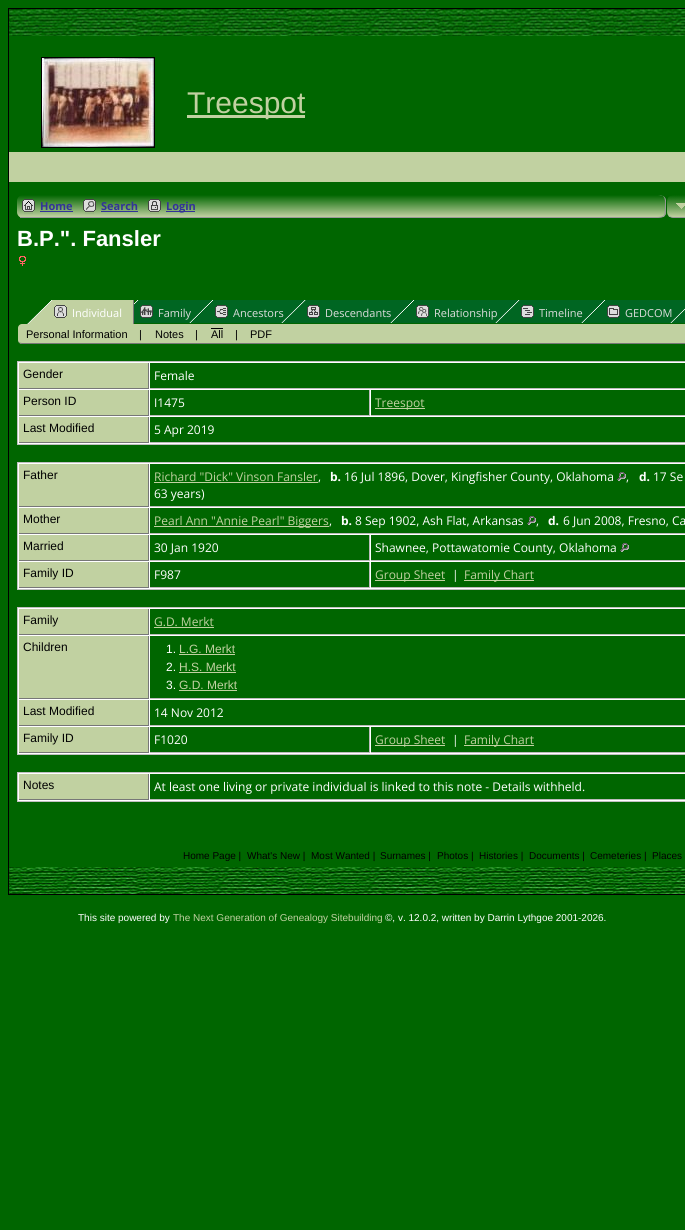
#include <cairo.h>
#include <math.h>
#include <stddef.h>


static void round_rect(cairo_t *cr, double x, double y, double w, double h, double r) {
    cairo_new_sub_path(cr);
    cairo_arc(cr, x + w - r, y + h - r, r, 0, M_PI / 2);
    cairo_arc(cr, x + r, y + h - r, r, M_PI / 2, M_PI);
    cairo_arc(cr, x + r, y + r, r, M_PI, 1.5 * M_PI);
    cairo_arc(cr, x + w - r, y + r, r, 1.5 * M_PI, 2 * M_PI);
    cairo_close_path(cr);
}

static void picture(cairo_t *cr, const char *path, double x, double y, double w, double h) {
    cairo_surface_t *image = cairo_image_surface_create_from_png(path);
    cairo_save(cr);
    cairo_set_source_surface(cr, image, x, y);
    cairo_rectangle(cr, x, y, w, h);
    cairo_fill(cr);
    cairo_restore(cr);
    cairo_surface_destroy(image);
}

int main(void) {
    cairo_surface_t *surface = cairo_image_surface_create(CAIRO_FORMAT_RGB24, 685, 1230);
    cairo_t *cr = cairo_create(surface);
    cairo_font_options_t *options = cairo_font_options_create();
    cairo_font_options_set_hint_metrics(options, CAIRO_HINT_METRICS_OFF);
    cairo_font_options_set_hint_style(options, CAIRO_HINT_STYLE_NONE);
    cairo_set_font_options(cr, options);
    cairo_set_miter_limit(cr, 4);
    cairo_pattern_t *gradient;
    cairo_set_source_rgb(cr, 0, 0.4, 0);
    cairo_paint(cr);
    cairo_set_source_rgb(cr, 0, 0, 0);
    cairo_rectangle(cr, 8, 8, 677, 1);
    cairo_fill(cr);
    cairo_rectangle(cr, 8, 894, 677, 1);
    cairo_fill(cr);
    cairo_rectangle(cr, 8, 8, 1, 887);
    cairo_fill(cr);
    picture(cr, "img1.png", 9, 9, 676, 27);
    cairo_rectangle(cr, 41.5, 57.5, 113, 90);
    cairo_set_line_width(cr, 1);
    cairo_stroke(cr);
    picture(cr, "img2.png", 42, 58, 112, 89);
    cairo_set_source_rgb(cr, 0.757, 0.82, 0.631);
    cairo_rectangle(cr, 187, 115, 118, 3);
    cairo_fill(cr);
    cairo_select_font_face(cr, "Liberation Sans", CAIRO_FONT_SLANT_NORMAL, CAIRO_FONT_WEIGHT_NORMAL);
    cairo_set_font_size(cr, 30);
    cairo_move_to(cr, 187, 113);
    cairo_show_text(cr, "Treespot");
    cairo_rectangle(cr, 9, 152, 676, 30);
    cairo_fill(cr);
    cairo_save(cr);
    round_rect(cr, 17, 195, 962, 23, 6);
    cairo_clip(cr);
    gradient = cairo_pattern_create_linear(498, 195, 498, 217);
    cairo_pattern_add_color_stop_rgba(gradient, 0, 0, 0.4, 0, 1);
    cairo_pattern_add_color_stop_rgba(gradient, 1, 0.757, 0.82, 0.631, 1);
    cairo_set_source(cr, gradient);
    cairo_pattern_destroy(gradient);
    cairo_new_path(cr);
    cairo_move_to(cr, 23, 195);
    cairo_line_to(cr, 685, 195);
    cairo_curve_to(cr, 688.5, 195, 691, 197.5, 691, 201);
    cairo_line_to(cr, 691, 217);
    cairo_line_to(cr, 17, 217);
    cairo_line_to(cr, 17, 201);
    cairo_curve_to(cr, 17, 197.5, 19.5, 195, 23, 195);
    cairo_close_path(cr);
    cairo_fill(cr);
    cairo_restore(cr);
    cairo_set_source_rgb(cr, 0.6, 0.6, 0.6);
    cairo_rectangle(cr, 20, 217, 635, 1);
    cairo_fill(cr);
    picture(cr, "img3.png", 22, 199, 13, 15);
    cairo_select_font_face(cr, "Open Sans", CAIRO_FONT_SLANT_NORMAL, CAIRO_FONT_WEIGHT_BOLD);
    cairo_set_font_size(cr, 11);
    cairo_set_source_rgb(cr, 0.2, 0.2, 0.6);
    cairo_move_to(cr, 40, 210);
    cairo_show_text(cr, "Home");
    cairo_rectangle(cr, 40, 211, 33, 1);
    cairo_fill(cr);
    picture(cr, "img4.png", 83, 199, 13, 15);
    cairo_move_to(cr, 101, 210);
    cairo_show_text(cr, "Search");
    cairo_rectangle(cr, 101, 211, 37, 1);
    cairo_fill(cr);
    picture(cr, "img5.png", 148, 199, 13, 15);
    cairo_rectangle(cr, 166, 211, 29, 1);
    cairo_fill(cr);
    cairo_move_to(cr, 166, 210);
    cairo_show_text(cr, "Login");
    cairo_set_source_rgb(cr, 0, 0.4, 0);
    cairo_rectangle(cr, 660, 195, 13, 22);
    cairo_fill(cr);
    cairo_save(cr);
    cairo_new_path(cr);
    cairo_move_to(cr, 655, 195);
    cairo_line_to(cr, 660, 195);
    cairo_curve_to(cr, 663.5, 195, 666, 197.5, 666, 201);
    cairo_line_to(cr, 666, 212);
    cairo_curve_to(cr, 666, 215.5, 663.5, 218, 660, 218);
    cairo_line_to(cr, 655, 218);
    cairo_close_path(cr);
    cairo_clip(cr);
    gradient = cairo_pattern_create_linear(660, 195, 660, 217);
    cairo_pattern_add_color_stop_rgba(gradient, 0, 0, 0.4, 0, 1);
    cairo_pattern_add_color_stop_rgba(gradient, 1, 0.757, 0.82, 0.631, 1);
    cairo_set_source(cr, gradient);
    cairo_pattern_destroy(gradient);
    cairo_rectangle(cr, 655, 195, 11, 22);
    cairo_fill(cr);
    gradient = cairo_pattern_create_linear(660, 217, 660, 239);
    cairo_pattern_add_color_stop_rgba(gradient, 0, 0, 0.4, 0, 1);
    cairo_pattern_add_color_stop_rgba(gradient, 1, 0.757, 0.82, 0.631, 1);
    cairo_set_source(cr, gradient);
    cairo_pattern_destroy(gradient);
    cairo_rectangle(cr, 655, 217, 11, 1);
    cairo_fill(cr);
    cairo_restore(cr);
    cairo_set_source_rgb(cr, 0.6, 0.6, 0.6);
    cairo_set_fill_rule(cr, CAIRO_FILL_RULE_EVEN_ODD);
    cairo_new_path(cr);
    cairo_move_to(cr, 655, 195);
    cairo_curve_to(cr, 659, 195, 665, 194.5, 666, 200);
    cairo_line_to(cr, 666, 213);
    cairo_curve_to(cr, 665, 218.5, 659, 218, 655, 218);
    cairo_close_path(cr);
    cairo_move_to(cr, 655, 195);
    cairo_line_to(cr, 661, 195);
    cairo_curve_to(cr, 666, 196.5, 665, 203, 665, 206.5);
    cairo_curve_to(cr, 665, 216.5, 664.5, 217, 655, 217);
    cairo_close_path(cr);
    cairo_fill(cr);
    picture(cr, "img6.png", 667, 195, 18, 22);
    cairo_new_path(cr);
    cairo_move_to(cr, 673, 195);
    cairo_line_to(cr, 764, 195);
    cairo_curve_to(cr, 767, 195, 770, 198, 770, 201);
    cairo_line_to(cr, 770, 212);
    cairo_curve_to(cr, 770, 215, 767, 218, 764, 218);
    cairo_line_to(cr, 673, 218);
    cairo_curve_to(cr, 670, 218, 667, 215, 667, 212);
    cairo_line_to(cr, 667, 201);
    cairo_curve_to(cr, 667, 198, 670, 195, 673, 195);
    cairo_close_path(cr);
    cairo_move_to(cr, 673, 195);
    cairo_line_to(cr, 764, 195);
    cairo_curve_to(cr, 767, 195, 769, 198, 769, 201);
    cairo_line_to(cr, 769, 212);
    cairo_curve_to(cr, 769, 215, 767, 217, 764, 217);
    cairo_line_to(cr, 673, 217);
    cairo_curve_to(cr, 670, 217, 667, 215, 667, 212);
    cairo_line_to(cr, 667, 201);
    cairo_curve_to(cr, 667, 198, 670, 195, 673, 195);
    cairo_close_path(cr);
    cairo_fill(cr);
    cairo_select_font_face(cr, "Liberation Sans", CAIRO_FONT_SLANT_NORMAL, CAIRO_FONT_WEIGHT_BOLD);
    cairo_set_font_size(cr, 22);
    cairo_set_source_rgb(cr, 1, 1, 1);
    cairo_move_to(cr, 17, 246);
    cairo_show_text(cr, "B.P.\". Fansler");
    picture(cr, "img7.png", 19, 256, 7, 10);
    picture(cr, "img8.png", 27, 300, 106, 24);
    cairo_set_source_rgb(cr, 0.467, 0.467, 0.467);
    cairo_rectangle(cr, 133, 300, 1, 24);
    cairo_fill(cr);
    picture(cr, "img9.png", 54, 305, 13, 13);
    cairo_select_font_face(cr, "Open Sans", CAIRO_FONT_SLANT_NORMAL, CAIRO_FONT_WEIGHT_NORMAL);
    cairo_set_font_size(cr, 11);
    cairo_set_source_rgb(cr, 1, 1, 1);
    cairo_move_to(cr, 72, 317);
    cairo_show_text(cr, "Individual");
    picture(cr, "img10.png", 134, 300, 78, 23);
    picture(cr, "img11.png", 140, 305, 13, 13);
    cairo_set_source_rgb(cr, 0.867, 0.867, 0.867);
    cairo_move_to(cr, 158, 317);
    cairo_show_text(cr, "Family");
    picture(cr, "img12.png", 189, 300, 116, 23);
    picture(cr, "img13.png", 215, 305, 13, 13);
    cairo_move_to(cr, 233, 317);
    cairo_show_text(cr, "Ancestors");
    picture(cr, "img14.png", 281, 300, 132, 23);
    picture(cr, "img15.png", 307, 305, 13, 13);
    cairo_move_to(cr, 325, 317);
    cairo_show_text(cr, "Descendants");
    picture(cr, "img16.png", 390, 300, 129, 23);
    picture(cr, "img17.png", 416, 305, 13, 13);
    cairo_move_to(cr, 434, 317);
    cairo_show_text(cr, "Relationship");
    picture(cr, "img18.png", 495, 300, 109, 23);
    picture(cr, "img19.png", 521, 305, 13, 13);
    cairo_move_to(cr, 539, 317);
    cairo_show_text(cr, "Timeline");
    picture(cr, "img20.png", 581, 300, 104, 23);
    picture(cr, "img21.png", 607, 305, 13, 13);
    cairo_move_to(cr, 625, 317);
    cairo_show_text(cr, "GEDCOM");
    picture(cr, "img22.png", 670, 308, 15, 15);
    cairo_set_source_rgb(cr, 0.757, 0.82, 0.631);
    round_rect(cr, 18, 324, 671, 20, 4);
    cairo_fill(cr);
    cairo_set_source_rgb(cr, 0.467, 0.467, 0.467);
    cairo_new_path(cr);
    cairo_move_to(cr, 22, 324);
    cairo_line_to(cr, 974, 324);
    cairo_curve_to(cr, 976, 324, 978, 326, 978, 328);
    cairo_line_to(cr, 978, 340);
    cairo_curve_to(cr, 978, 342, 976, 344, 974, 344);
    cairo_line_to(cr, 22, 344);
    cairo_curve_to(cr, 20, 344, 18, 342, 18, 340);
    cairo_line_to(cr, 18, 328);
    cairo_curve_to(cr, 18, 326, 20, 324, 22, 324);
    cairo_close_path(cr);
    cairo_move_to(cr, 22, 324);
    cairo_line_to(cr, 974, 324);
    cairo_curve_to(cr, 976, 324, 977, 326, 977, 328);
    cairo_line_to(cr, 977, 340);
    cairo_curve_to(cr, 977, 342, 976, 343, 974, 343);
    cairo_line_to(cr, 22, 343);
    cairo_curve_to(cr, 20, 343, 18, 342, 18, 340);
    cairo_line_to(cr, 18, 328);
    cairo_curve_to(cr, 18, 326, 20, 324, 22, 324);
    cairo_close_path(cr);
    cairo_fill(cr);
    cairo_select_font_face(cr, "Liberation Sans", CAIRO_FONT_SLANT_NORMAL, CAIRO_FONT_WEIGHT_NORMAL);
    cairo_set_source_rgb(cr, 0, 0, 0);
    cairo_move_to(cr, 26, 338);
    cairo_show_text(cr, "Personal Information");
    cairo_move_to(cr, 139, 338);
    cairo_show_text(cr, "|");
    cairo_move_to(cr, 155, 338);
    cairo_show_text(cr, "Notes");
    cairo_move_to(cr, 195, 338);
    cairo_show_text(cr, "|");
    cairo_move_to(cr, 211, 338);
    cairo_show_text(cr, "All");
    cairo_rectangle(cr, 211, 328, 12, 1);
    cairo_fill(cr);
    cairo_move_to(cr, 235, 338);
    cairo_show_text(cr, "|");
    cairo_move_to(cr, 250, 338);
    cairo_show_text(cr, "PDF");
    cairo_set_source_rgb(cr, 1, 1, 1);
    cairo_rectangle(cr, 17.5, 361.5, 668, 83);
    cairo_fill_preserve(cr);
    cairo_set_source_rgb(cr, 0.753, 0.753, 0.753);
    cairo_stroke(cr);
    cairo_set_source_rgb(cr, 0.757, 0.82, 0.631);
    cairo_rectangle(cr, 19, 363, 129, 25);
    cairo_fill(cr);
    cairo_set_source_rgb(cr, 0.467, 0.467, 0.467);
    cairo_rectangle(cr, 148, 363, 1, 26);
    cairo_fill(cr);
    cairo_rectangle(cr, 19, 388, 130, 1);
    cairo_fill(cr);
    cairo_set_font_size(cr, 12);
    cairo_set_source_rgb(cr, 0, 0, 0);
    cairo_move_to(cr, 23, 378);
    cairo_show_text(cr, "Gender");
    cairo_set_source_rgb(cr, 0, 0.4, 0);
    cairo_rectangle(cr, 150, 363, 535, 25);
    cairo_fill(cr);
    cairo_set_source_rgb(cr, 0.733, 0.733, 0.733);
    cairo_rectangle(cr, 150, 388, 535, 1);
    cairo_fill(cr);
    cairo_select_font_face(cr, "Open Sans", CAIRO_FONT_SLANT_NORMAL, CAIRO_FONT_WEIGHT_NORMAL);
    cairo_set_source_rgb(cr, 1, 1, 1);
    cairo_move_to(cr, 154, 380);
    cairo_show_text(cr, "Female");
    cairo_set_source_rgb(cr, 0.757, 0.82, 0.631);
    cairo_rectangle(cr, 19, 390, 129, 25);
    cairo_fill(cr);
    cairo_set_source_rgb(cr, 0.467, 0.467, 0.467);
    cairo_rectangle(cr, 148, 390, 1, 26);
    cairo_fill(cr);
    cairo_rectangle(cr, 19, 415, 130, 1);
    cairo_fill(cr);
    cairo_select_font_face(cr, "Liberation Sans", CAIRO_FONT_SLANT_NORMAL, CAIRO_FONT_WEIGHT_NORMAL);
    cairo_set_source_rgb(cr, 0, 0, 0);
    cairo_move_to(cr, 23, 405);
    cairo_show_text(cr, "Person ID");
    cairo_set_source_rgb(cr, 0, 0.4, 0);
    cairo_rectangle(cr, 150, 390, 219, 25);
    cairo_fill(cr);
    cairo_set_source_rgb(cr, 0.733, 0.733, 0.733);
    cairo_rectangle(cr, 369, 390, 1, 26);
    cairo_fill(cr);
    cairo_rectangle(cr, 150, 415, 220, 1);
    cairo_fill(cr);
    cairo_select_font_face(cr, "Open Sans", CAIRO_FONT_SLANT_NORMAL, CAIRO_FONT_WEIGHT_NORMAL);
    cairo_set_source_rgb(cr, 1, 1, 1);
    cairo_move_to(cr, 154, 407);
    cairo_show_text(cr, "I1475");
    cairo_set_source_rgb(cr, 0, 0.4, 0);
    cairo_rectangle(cr, 371, 390, 314, 25);
    cairo_fill(cr);
    cairo_set_source_rgb(cr, 0.733, 0.733, 0.733);
    cairo_rectangle(cr, 371, 415, 314, 1);
    cairo_fill(cr);
    cairo_set_source_rgb(cr, 0.757, 0.82, 0.631);
    cairo_rectangle(cr, 375, 408, 50, 1);
    cairo_fill(cr);
    cairo_move_to(cr, 375, 407);
    cairo_show_text(cr, "Treespot");
    cairo_rectangle(cr, 19, 417, 129, 25);
    cairo_fill(cr);
    cairo_set_source_rgb(cr, 0.467, 0.467, 0.467);
    cairo_rectangle(cr, 148, 417, 1, 26);
    cairo_fill(cr);
    cairo_rectangle(cr, 19, 442, 130, 1);
    cairo_fill(cr);
    cairo_select_font_face(cr, "Liberation Sans", CAIRO_FONT_SLANT_NORMAL, CAIRO_FONT_WEIGHT_NORMAL);
    cairo_set_source_rgb(cr, 0, 0, 0);
    cairo_move_to(cr, 23, 432);
    cairo_show_text(cr, "Last Modified");
    cairo_set_source_rgb(cr, 0, 0.4, 0);
    cairo_rectangle(cr, 150, 417, 535, 25);
    cairo_fill(cr);
    cairo_set_source_rgb(cr, 0.733, 0.733, 0.733);
    cairo_rectangle(cr, 150, 442, 535, 1);
    cairo_fill(cr);
    cairo_select_font_face(cr, "Open Sans", CAIRO_FONT_SLANT_NORMAL, CAIRO_FONT_WEIGHT_NORMAL);
    cairo_set_source_rgb(cr, 1, 1, 1);
    cairo_move_to(cr, 154, 434);
    cairo_show_text(cr, "5 Apr 2019");
    cairo_rectangle(cr, 17.5, 462.5, 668, 127);
    cairo_fill_preserve(cr);
    cairo_set_source_rgb(cr, 0.753, 0.753, 0.753);
    cairo_stroke(cr);
    cairo_set_source_rgb(cr, 0.757, 0.82, 0.631);
    cairo_rectangle(cr, 19, 464, 129, 42);
    cairo_fill(cr);
    cairo_set_source_rgb(cr, 0.467, 0.467, 0.467);
    cairo_rectangle(cr, 148, 464, 1, 43);
    cairo_fill(cr);
    cairo_rectangle(cr, 19, 506, 130, 1);
    cairo_fill(cr);
    cairo_select_font_face(cr, "Liberation Sans", CAIRO_FONT_SLANT_NORMAL, CAIRO_FONT_WEIGHT_NORMAL);
    cairo_set_source_rgb(cr, 0, 0, 0);
    cairo_move_to(cr, 23, 479);
    cairo_show_text(cr, "Father");
    cairo_set_source_rgb(cr, 0, 0.4, 0);
    cairo_rectangle(cr, 150, 464, 535, 42);
    cairo_fill(cr);
    cairo_set_source_rgb(cr, 0.733, 0.733, 0.733);
    cairo_rectangle(cr, 150, 506, 535, 1);
    cairo_fill(cr);
    cairo_select_font_face(cr, "Open Sans", CAIRO_FONT_SLANT_NORMAL, CAIRO_FONT_WEIGHT_NORMAL);
    cairo_set_source_rgb(cr, 0.757, 0.82, 0.631);
    cairo_move_to(cr, 154, 481);
    cairo_show_text(cr, "Richard \"Dick\" Vinson Fansler");
    cairo_rectangle(cr, 154, 482, 164, 1);
    cairo_fill(cr);
    cairo_set_source_rgb(cr, 1, 1, 1);
    cairo_move_to(cr, 318, 481);
    cairo_show_text(cr, ",");
    cairo_select_font_face(cr, "Open Sans", CAIRO_FONT_SLANT_NORMAL, CAIRO_FONT_WEIGHT_BOLD);
    cairo_move_to(cr, 330, 481);
    cairo_show_text(cr, "b.");
    cairo_select_font_face(cr, "Open Sans", CAIRO_FONT_SLANT_NORMAL, CAIRO_FONT_WEIGHT_NORMAL);
    cairo_move_to(cr, 344, 481);
    cairo_show_text(cr, "16 Jul 1896, Dover, Kingfisher County, Oklahoma");
    picture(cr, "img23.png", 617, 472, 9, 9);
    cairo_move_to(cr, 626, 481);
    cairo_show_text(cr, ",");
    cairo_select_font_face(cr, "Open Sans", CAIRO_FONT_SLANT_NORMAL, CAIRO_FONT_WEIGHT_BOLD);
    cairo_move_to(cr, 639, 481);
    cairo_show_text(cr, "d.");
    cairo_select_font_face(cr, "Open Sans", CAIRO_FONT_SLANT_NORMAL, CAIRO_FONT_WEIGHT_NORMAL);
    cairo_move_to(cr, 653, 481);
    cairo_show_text(cr, "17 Se");
    cairo_move_to(cr, 154, 498);
    cairo_show_text(cr, "63 years)");
    cairo_set_source_rgb(cr, 0.757, 0.82, 0.631);
    cairo_rectangle(cr, 19, 508, 129, 25);
    cairo_fill(cr);
    cairo_set_source_rgb(cr, 0.467, 0.467, 0.467);
    cairo_rectangle(cr, 148, 508, 1, 26);
    cairo_fill(cr);
    cairo_rectangle(cr, 19, 533, 130, 1);
    cairo_fill(cr);
    cairo_select_font_face(cr, "Liberation Sans", CAIRO_FONT_SLANT_NORMAL, CAIRO_FONT_WEIGHT_NORMAL);
    cairo_set_source_rgb(cr, 0, 0, 0);
    cairo_move_to(cr, 23, 523);
    cairo_show_text(cr, "Mother");
    cairo_set_source_rgb(cr, 0, 0.4, 0);
    cairo_rectangle(cr, 150, 508, 535, 25);
    cairo_fill(cr);
    cairo_set_source_rgb(cr, 0.733, 0.733, 0.733);
    cairo_rectangle(cr, 150, 533, 535, 1);
    cairo_fill(cr);
    cairo_set_source_rgb(cr, 0.757, 0.82, 0.631);
    cairo_rectangle(cr, 154, 526, 175, 1);
    cairo_fill(cr);
    cairo_select_font_face(cr, "Open Sans", CAIRO_FONT_SLANT_NORMAL, CAIRO_FONT_WEIGHT_NORMAL);
    cairo_move_to(cr, 154, 525);
    cairo_show_text(cr, "Pearl Ann \"Annie Pearl\" Biggers");
    cairo_set_source_rgb(cr, 1, 1, 1);
    cairo_move_to(cr, 329, 525);
    cairo_show_text(cr, ",");
    cairo_select_font_face(cr, "Open Sans", CAIRO_FONT_SLANT_NORMAL, CAIRO_FONT_WEIGHT_BOLD);
    cairo_move_to(cr, 341, 525);
    cairo_show_text(cr, "b.");
    cairo_select_font_face(cr, "Open Sans", CAIRO_FONT_SLANT_NORMAL, CAIRO_FONT_WEIGHT_NORMAL);
    cairo_move_to(cr, 355, 525);
    cairo_show_text(cr, "8 Sep 1902, Ash Flat, Arkansas");
    picture(cr, "img23.png", 527, 516, 9, 9);
    cairo_move_to(cr, 536, 525);
    cairo_show_text(cr, ",");
    cairo_select_font_face(cr, "Open Sans", CAIRO_FONT_SLANT_NORMAL, CAIRO_FONT_WEIGHT_BOLD);
    cairo_move_to(cr, 548, 525);
    cairo_show_text(cr, "d.");
    cairo_select_font_face(cr, "Open Sans", CAIRO_FONT_SLANT_NORMAL, CAIRO_FONT_WEIGHT_NORMAL);
    cairo_move_to(cr, 563, 525);
    cairo_show_text(cr, "6 Jun 2008, Fresno, Ca");
    cairo_set_source_rgb(cr, 0.757, 0.82, 0.631);
    cairo_rectangle(cr, 19, 535, 129, 25);
    cairo_fill(cr);
    cairo_set_source_rgb(cr, 0.467, 0.467, 0.467);
    cairo_rectangle(cr, 148, 535, 1, 26);
    cairo_fill(cr);
    cairo_rectangle(cr, 19, 560, 130, 1);
    cairo_fill(cr);
    cairo_select_font_face(cr, "Liberation Sans", CAIRO_FONT_SLANT_NORMAL, CAIRO_FONT_WEIGHT_NORMAL);
    cairo_set_source_rgb(cr, 0, 0, 0);
    cairo_move_to(cr, 23, 550);
    cairo_show_text(cr, "Married");
    cairo_set_source_rgb(cr, 0, 0.4, 0);
    cairo_rectangle(cr, 150, 535, 219, 25);
    cairo_fill(cr);
    cairo_set_source_rgb(cr, 0.733, 0.733, 0.733);
    cairo_rectangle(cr, 369, 535, 1, 26);
    cairo_fill(cr);
    cairo_rectangle(cr, 150, 560, 220, 1);
    cairo_fill(cr);
    cairo_select_font_face(cr, "Open Sans", CAIRO_FONT_SLANT_NORMAL, CAIRO_FONT_WEIGHT_NORMAL);
    cairo_set_source_rgb(cr, 1, 1, 1);
    cairo_move_to(cr, 154, 552);
    cairo_show_text(cr, "30 Jan 1920");
    cairo_set_source_rgb(cr, 0, 0.4, 0);
    cairo_rectangle(cr, 371, 535, 314, 25);
    cairo_fill(cr);
    cairo_set_source_rgb(cr, 0.733, 0.733, 0.733);
    cairo_rectangle(cr, 371, 560, 314, 1);
    cairo_fill(cr);
    cairo_set_source_rgb(cr, 1, 1, 1);
    cairo_move_to(cr, 375, 552);
    cairo_show_text(cr, "Shawnee, Pottawatomie County, Oklahoma");
    picture(cr, "img23.png", 620, 543, 9, 9);
    cairo_set_source_rgb(cr, 0.757, 0.82, 0.631);
    cairo_rectangle(cr, 19, 562, 129, 25);
    cairo_fill(cr);
    cairo_set_source_rgb(cr, 0.467, 0.467, 0.467);
    cairo_rectangle(cr, 148, 562, 1, 26);
    cairo_fill(cr);
    cairo_rectangle(cr, 19, 587, 130, 1);
    cairo_fill(cr);
    cairo_select_font_face(cr, "Liberation Sans", CAIRO_FONT_SLANT_NORMAL, CAIRO_FONT_WEIGHT_NORMAL);
    cairo_set_source_rgb(cr, 0, 0, 0);
    cairo_move_to(cr, 23, 577);
    cairo_show_text(cr, "Family ID");
    cairo_set_source_rgb(cr, 0, 0.4, 0);
    cairo_rectangle(cr, 150, 562, 219, 25);
    cairo_fill(cr);
    cairo_set_source_rgb(cr, 0.733, 0.733, 0.733);
    cairo_rectangle(cr, 369, 562, 1, 26);
    cairo_fill(cr);
    cairo_rectangle(cr, 150, 587, 220, 1);
    cairo_fill(cr);
    cairo_select_font_face(cr, "Open Sans", CAIRO_FONT_SLANT_NORMAL, CAIRO_FONT_WEIGHT_NORMAL);
    cairo_set_source_rgb(cr, 1, 1, 1);
    cairo_move_to(cr, 154, 579);
    cairo_show_text(cr, "F987");
    cairo_set_source_rgb(cr, 0, 0.4, 0);
    cairo_rectangle(cr, 371, 562, 314, 25);
    cairo_fill(cr);
    cairo_set_source_rgb(cr, 0.733, 0.733, 0.733);
    cairo_rectangle(cr, 371, 587, 314, 1);
    cairo_fill(cr);
    cairo_set_source_rgb(cr, 0.757, 0.82, 0.631);
    cairo_rectangle(cr, 375, 580, 70, 1);
    cairo_fill(cr);
    cairo_move_to(cr, 375, 579);
    cairo_show_text(cr, "Group Sheet");
    cairo_set_source_rgb(cr, 1, 1, 1);
    cairo_move_to(cr, 452, 579);
    cairo_show_text(cr, "|");
    cairo_set_source_rgb(cr, 0.757, 0.82, 0.631);
    cairo_rectangle(cr, 464, 580, 70, 1);
    cairo_fill(cr);
    cairo_move_to(cr, 464, 579);
    cairo_show_text(cr, "Family Chart");
    cairo_set_source_rgb(cr, 1, 1, 1);
    cairo_rectangle(cr, 17.5, 607.5, 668, 147);
    cairo_fill_preserve(cr);
    cairo_set_source_rgb(cr, 0.753, 0.753, 0.753);
    cairo_stroke(cr);
    cairo_set_source_rgb(cr, 0.757, 0.82, 0.631);
    cairo_rectangle(cr, 19, 609, 129, 25);
    cairo_fill(cr);
    cairo_set_source_rgb(cr, 0.467, 0.467, 0.467);
    cairo_rectangle(cr, 148, 609, 1, 26);
    cairo_fill(cr);
    cairo_rectangle(cr, 19, 634, 130, 1);
    cairo_fill(cr);
    cairo_select_font_face(cr, "Liberation Sans", CAIRO_FONT_SLANT_NORMAL, CAIRO_FONT_WEIGHT_NORMAL);
    cairo_set_source_rgb(cr, 0, 0, 0);
    cairo_move_to(cr, 23, 624);
    cairo_show_text(cr, "Family");
    cairo_set_source_rgb(cr, 0, 0.4, 0);
    cairo_rectangle(cr, 150, 609, 535, 25);
    cairo_fill(cr);
    cairo_set_source_rgb(cr, 0.733, 0.733, 0.733);
    cairo_rectangle(cr, 150, 634, 535, 1);
    cairo_fill(cr);
    cairo_select_font_face(cr, "Open Sans", CAIRO_FONT_SLANT_NORMAL, CAIRO_FONT_WEIGHT_NORMAL);
    cairo_set_source_rgb(cr, 0.757, 0.82, 0.631);
    cairo_move_to(cr, 154, 626);
    cairo_show_text(cr, "G.D. Merkt");
    cairo_rectangle(cr, 154, 627, 60, 1);
    cairo_fill(cr);
    cairo_rectangle(cr, 19, 636, 129, 62);
    cairo_fill(cr);
    cairo_set_source_rgb(cr, 0.467, 0.467, 0.467);
    cairo_rectangle(cr, 148, 636, 1, 63);
    cairo_fill(cr);
    cairo_rectangle(cr, 19, 698, 130, 1);
    cairo_fill(cr);
    cairo_select_font_face(cr, "Liberation Sans", CAIRO_FONT_SLANT_NORMAL, CAIRO_FONT_WEIGHT_NORMAL);
    cairo_set_source_rgb(cr, 0, 0, 0);
    cairo_move_to(cr, 23, 651);
    cairo_show_text(cr, "Children");
    cairo_set_source_rgb(cr, 0, 0.4, 0);
    cairo_rectangle(cr, 150, 636, 535, 62);
    cairo_fill(cr);
    cairo_set_source_rgb(cr, 0.733, 0.733, 0.733);
    cairo_rectangle(cr, 150, 698, 535, 1);
    cairo_fill(cr);
    cairo_set_source_rgb(cr, 1, 1, 1);
    cairo_move_to(cr, 166, 653);
    cairo_show_text(cr, "1.");
    cairo_set_source_rgb(cr, 0.757, 0.82, 0.631);
    cairo_move_to(cr, 179, 653);
    cairo_show_text(cr, "L.G. Merkt");
    cairo_rectangle(cr, 179, 654, 56, 1);
    cairo_fill(cr);
    cairo_set_source_rgb(cr, 1, 1, 1);
    cairo_move_to(cr, 166, 671);
    cairo_show_text(cr, "2.");
    cairo_set_source_rgb(cr, 0.757, 0.82, 0.631);
    cairo_move_to(cr, 179, 671);
    cairo_show_text(cr, "H.S. Merkt");
    cairo_rectangle(cr, 179, 672, 57, 1);
    cairo_fill(cr);
    cairo_set_source_rgb(cr, 1, 1, 1);
    cairo_move_to(cr, 166, 689);
    cairo_show_text(cr, "3.");
    cairo_set_source_rgb(cr, 0.757, 0.82, 0.631);
    cairo_move_to(cr, 179, 689);
    cairo_show_text(cr, "G.D. Merkt");
    cairo_rectangle(cr, 179, 690, 58, 1);
    cairo_fill(cr);
    cairo_rectangle(cr, 19, 700, 129, 25);
    cairo_fill(cr);
    cairo_set_source_rgb(cr, 0.467, 0.467, 0.467);
    cairo_rectangle(cr, 148, 700, 1, 26);
    cairo_fill(cr);
    cairo_rectangle(cr, 19, 725, 130, 1);
    cairo_fill(cr);
    cairo_set_source_rgb(cr, 0, 0, 0);
    cairo_move_to(cr, 23, 715);
    cairo_show_text(cr, "Last Modified");
    cairo_set_source_rgb(cr, 0, 0.4, 0);
    cairo_rectangle(cr, 150, 700, 535, 25);
    cairo_fill(cr);
    cairo_set_source_rgb(cr, 0.733, 0.733, 0.733);
    cairo_rectangle(cr, 150, 725, 535, 1);
    cairo_fill(cr);
    cairo_select_font_face(cr, "Open Sans", CAIRO_FONT_SLANT_NORMAL, CAIRO_FONT_WEIGHT_NORMAL);
    cairo_set_source_rgb(cr, 1, 1, 1);
    cairo_move_to(cr, 154, 717);
    cairo_show_text(cr, "14 Nov 2012");
    cairo_set_source_rgb(cr, 0.757, 0.82, 0.631);
    cairo_rectangle(cr, 19, 727, 129, 25);
    cairo_fill(cr);
    cairo_set_source_rgb(cr, 0.467, 0.467, 0.467);
    cairo_rectangle(cr, 148, 727, 1, 26);
    cairo_fill(cr);
    cairo_rectangle(cr, 19, 752, 130, 1);
    cairo_fill(cr);
    cairo_select_font_face(cr, "Liberation Sans", CAIRO_FONT_SLANT_NORMAL, CAIRO_FONT_WEIGHT_NORMAL);
    cairo_set_source_rgb(cr, 0, 0, 0);
    cairo_move_to(cr, 23, 742);
    cairo_show_text(cr, "Family ID");
    cairo_set_source_rgb(cr, 0, 0.4, 0);
    cairo_rectangle(cr, 150, 727, 219, 25);
    cairo_fill(cr);
    cairo_set_source_rgb(cr, 0.733, 0.733, 0.733);
    cairo_rectangle(cr, 369, 727, 1, 26);
    cairo_fill(cr);
    cairo_rectangle(cr, 150, 752, 220, 1);
    cairo_fill(cr);
    cairo_select_font_face(cr, "Open Sans", CAIRO_FONT_SLANT_NORMAL, CAIRO_FONT_WEIGHT_NORMAL);
    cairo_set_source_rgb(cr, 1, 1, 1);
    cairo_move_to(cr, 154, 744);
    cairo_show_text(cr, "F1020");
    cairo_set_source_rgb(cr, 0, 0.4, 0);
    cairo_rectangle(cr, 371, 727, 314, 25);
    cairo_fill(cr);
    cairo_set_source_rgb(cr, 0.733, 0.733, 0.733);
    cairo_rectangle(cr, 371, 752, 314, 1);
    cairo_fill(cr);
    cairo_set_source_rgb(cr, 0.757, 0.82, 0.631);
    cairo_rectangle(cr, 375, 745, 70, 1);
    cairo_fill(cr);
    cairo_move_to(cr, 375, 744);
    cairo_show_text(cr, "Group Sheet");
    cairo_set_source_rgb(cr, 1, 1, 1);
    cairo_move_to(cr, 452, 744);
    cairo_show_text(cr, "|");
    cairo_set_source_rgb(cr, 0.757, 0.82, 0.631);
    cairo_rectangle(cr, 464, 745, 70, 1);
    cairo_fill(cr);
    cairo_move_to(cr, 464, 744);
    cairo_show_text(cr, "Family Chart");
    cairo_set_source_rgb(cr, 1, 1, 1);
    cairo_rectangle(cr, 17.5, 772.5, 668, 29);
    cairo_fill_preserve(cr);
    cairo_set_source_rgb(cr, 0.753, 0.753, 0.753);
    cairo_stroke(cr);
    cairo_set_source_rgb(cr, 0.757, 0.82, 0.631);
    cairo_rectangle(cr, 19, 774, 129, 25);
    cairo_fill(cr);
    cairo_set_source_rgb(cr, 0.467, 0.467, 0.467);
    cairo_rectangle(cr, 148, 774, 1, 26);
    cairo_fill(cr);
    cairo_rectangle(cr, 19, 799, 130, 1);
    cairo_fill(cr);
    cairo_select_font_face(cr, "Liberation Sans", CAIRO_FONT_SLANT_NORMAL, CAIRO_FONT_WEIGHT_NORMAL);
    cairo_set_source_rgb(cr, 0, 0, 0);
    cairo_move_to(cr, 23, 789);
    cairo_show_text(cr, "Notes");
    cairo_set_source_rgb(cr, 0, 0.4, 0);
    cairo_rectangle(cr, 150, 774, 535, 25);
    cairo_fill(cr);
    cairo_set_source_rgb(cr, 0.733, 0.733, 0.733);
    cairo_rectangle(cr, 150, 799, 535, 1);
    cairo_fill(cr);
    cairo_select_font_face(cr, "Open Sans", CAIRO_FONT_SLANT_NORMAL, CAIRO_FONT_WEIGHT_NORMAL);
    cairo_set_source_rgb(cr, 1, 1, 1);
    cairo_move_to(cr, 154, 791);
    cairo_show_text(cr, "At least one living or private individual is linked to this note - Details withheld.");
    cairo_select_font_face(cr, "Liberation Sans", CAIRO_FONT_SLANT_NORMAL, CAIRO_FONT_WEIGHT_NORMAL);
    cairo_set_font_size(cr, 10);
    cairo_set_source_rgb(cr, 0, 0, 0);
    cairo_move_to(cr, 183, 859);
    cairo_show_text(cr, "Home Page |");
    cairo_move_to(cr, 247, 859);
    cairo_show_text(cr, "What's New |");
    cairo_move_to(cr, 311, 859);
    cairo_show_text(cr, "Most Wanted |");
    cairo_move_to(cr, 380, 859);
    cairo_show_text(cr, "Surnames |");
    cairo_move_to(cr, 437, 859);
    cairo_show_text(cr, "Photos |");
    cairo_move_to(cr, 479, 859);
    cairo_show_text(cr, "Histories |");
    cairo_move_to(cr, 529, 859);
    cairo_show_text(cr, "Documents |");
    cairo_move_to(cr, 590, 859);
    cairo_show_text(cr, "Cemeteries |");
    cairo_move_to(cr, 652, 859);
    cairo_show_text(cr, "Places");
    picture(cr, "img24.png", 9, 867, 676, 27);
    cairo_set_source_rgb(cr, 1, 1, 1);
    cairo_move_to(cr, 78, 921);
    cairo_show_text(cr, "This site powered by");
    cairo_set_source_rgb(cr, 0.757, 0.82, 0.631);
    cairo_move_to(cr, 173, 921);
    cairo_show_text(cr, "The Next Generation of Genealogy Sitebuilding");
    cairo_set_source_rgb(cr, 1, 1, 1);
    cairo_move_to(cr, 385, 921);
    cairo_show_text(cr, "©, v. 12.0.2, written by Darrin Lythgoe 2001-2026.");
    cairo_surface_write_to_png(surface, "page.png");
    cairo_font_options_destroy(options);
    cairo_destroy(cr);
    cairo_surface_destroy(surface);
    return 0;
}
